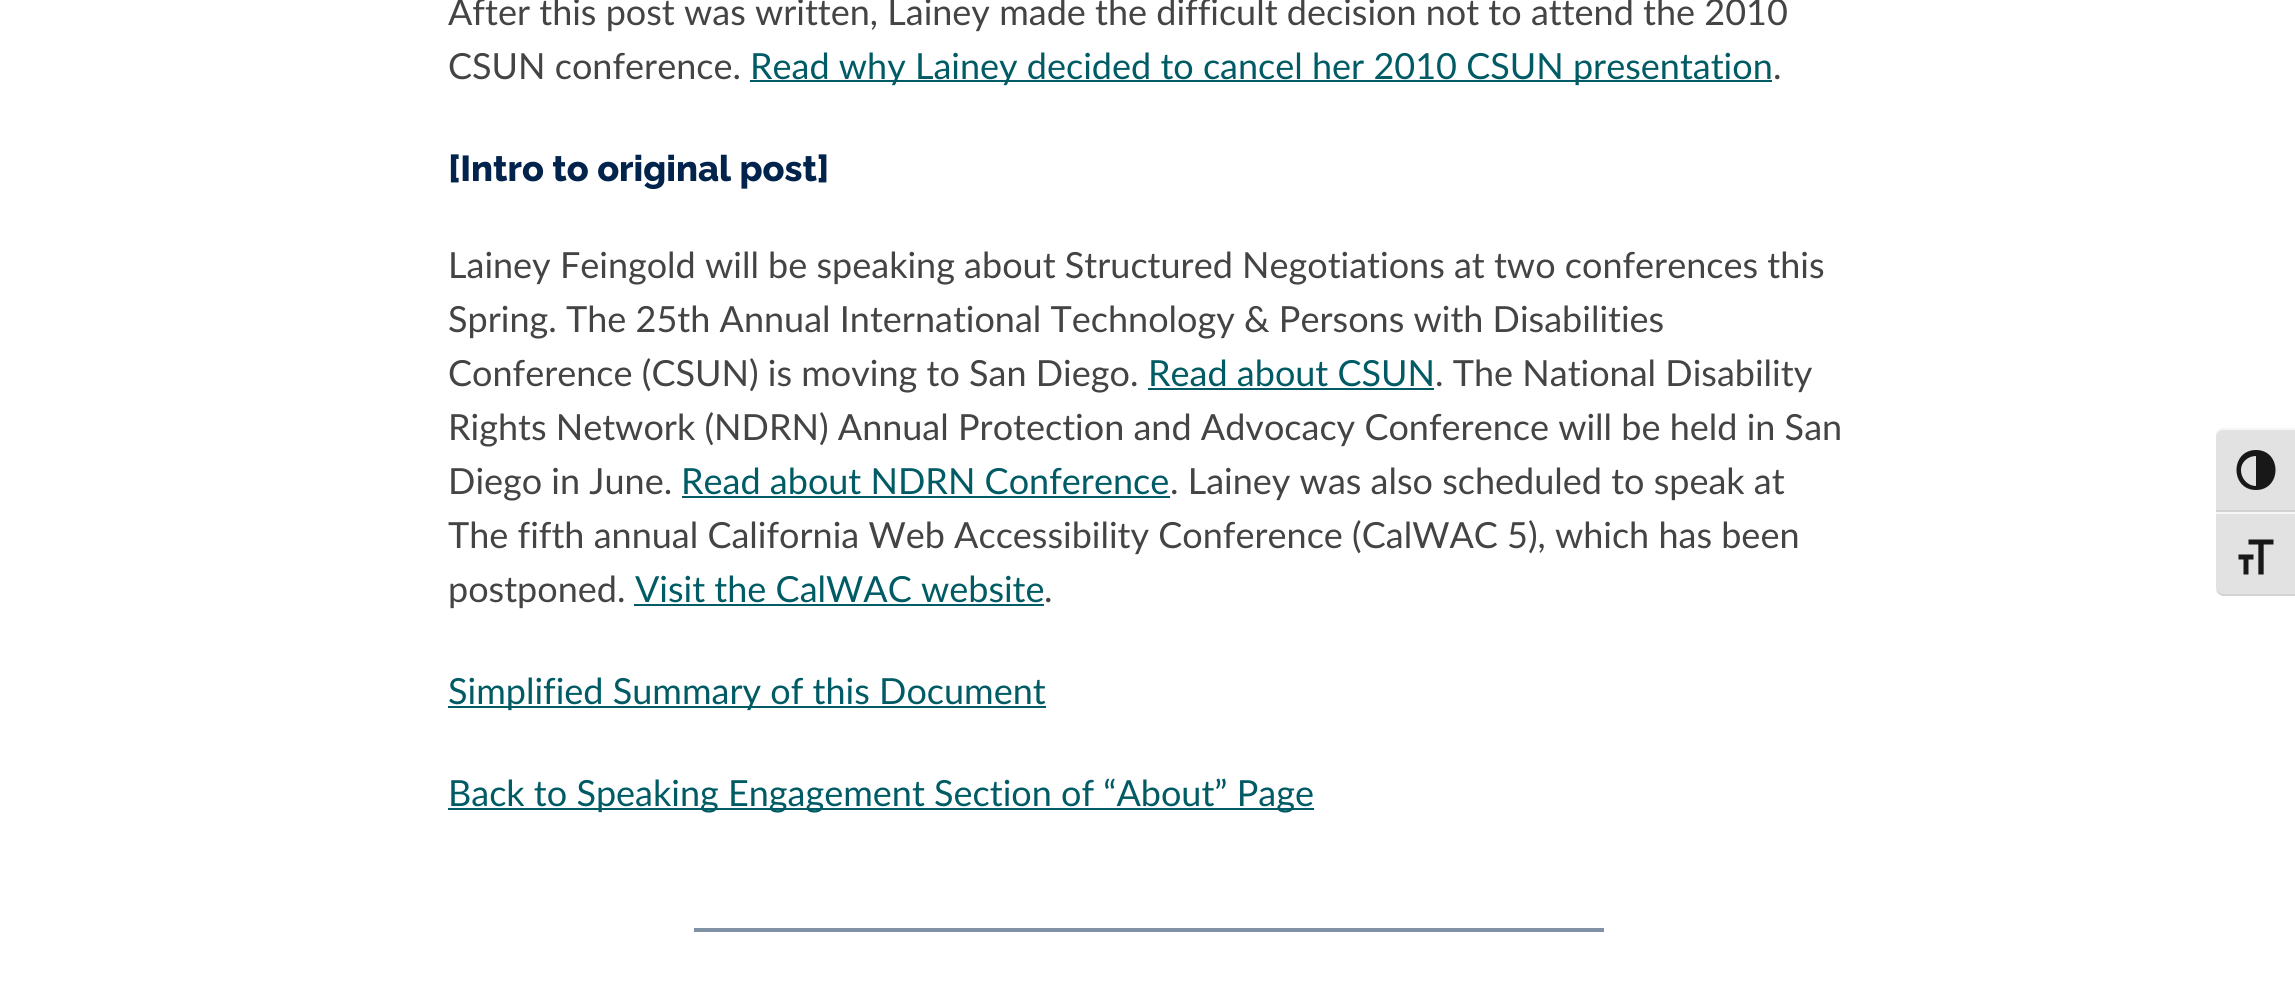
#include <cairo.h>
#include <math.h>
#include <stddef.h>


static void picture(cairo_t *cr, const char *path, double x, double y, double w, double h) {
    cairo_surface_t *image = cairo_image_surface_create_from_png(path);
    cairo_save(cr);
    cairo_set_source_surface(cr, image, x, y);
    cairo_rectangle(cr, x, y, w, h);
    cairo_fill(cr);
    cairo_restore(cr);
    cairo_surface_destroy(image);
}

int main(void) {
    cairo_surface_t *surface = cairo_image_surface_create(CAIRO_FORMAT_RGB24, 2295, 996);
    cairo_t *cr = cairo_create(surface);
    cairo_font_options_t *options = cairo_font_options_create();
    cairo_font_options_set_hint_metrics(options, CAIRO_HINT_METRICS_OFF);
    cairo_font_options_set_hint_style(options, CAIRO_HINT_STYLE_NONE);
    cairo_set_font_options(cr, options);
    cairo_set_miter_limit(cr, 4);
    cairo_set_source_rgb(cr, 1, 1, 1);
    cairo_paint(cr);
    cairo_select_font_face(cr, "Lato", CAIRO_FONT_SLANT_NORMAL, CAIRO_FONT_WEIGHT_NORMAL);
    cairo_set_font_size(cr, 36);
    cairo_set_source_rgb(cr, 0.267, 0.267, 0.267);
    cairo_move_to(cr, 448, 25);
    cairo_show_text(cr, "After this post was written, Lainey made the difficult decision not to attend the 2010");
    cairo_move_to(cr, 448, 79);
    cairo_show_text(cr, "CSUN conference.");
    cairo_set_source_rgb(cr, 0, 0.357, 0.396);
    cairo_rectangle(cr, 750, 80, 1022, 2);
    cairo_fill(cr);
    cairo_move_to(cr, 750, 79);
    cairo_show_text(cr, "Read why Lainey decided to cancel her 2010 CSUN presentation");
    cairo_set_source_rgb(cr, 0.267, 0.267, 0.267);
    cairo_move_to(cr, 1773, 79);
    cairo_show_text(cr, ".");
    cairo_select_font_face(cr, "Raleway Thin", CAIRO_FONT_SLANT_NORMAL, CAIRO_FONT_WEIGHT_NORMAL);
    cairo_set_source_rgb(cr, 0.004, 0.137, 0.298);
    cairo_move_to(cr, 448, 181);
    cairo_show_text(cr, "[Intro to original post]");
    cairo_select_font_face(cr, "Lato", CAIRO_FONT_SLANT_NORMAL, CAIRO_FONT_WEIGHT_NORMAL);
    cairo_set_source_rgb(cr, 0.267, 0.267, 0.267);
    cairo_move_to(cr, 448, 278);
    cairo_show_text(cr, "Lainey Feingold will be speaking about Structured Negotiations at two conferences this");
    cairo_move_to(cr, 448, 332);
    cairo_show_text(cr, "Spring. The 25th Annual International Technology & Persons with Disabilities");
    cairo_move_to(cr, 448, 386);
    cairo_show_text(cr, "Conference (CSUN) is moving to San Diego.");
    cairo_set_source_rgb(cr, 0, 0.357, 0.396);
    cairo_move_to(cr, 1148, 386);
    cairo_show_text(cr, "Read about CSUN");
    cairo_rectangle(cr, 1148, 388, 286, 2);
    cairo_fill(cr);
    cairo_set_source_rgb(cr, 0.267, 0.267, 0.267);
    cairo_move_to(cr, 1435, 386);
    cairo_show_text(cr, ". The National Disability");
    cairo_move_to(cr, 448, 440);
    cairo_show_text(cr, "Rights Network (NDRN) Annual Protection and Advocacy Conference will be held in San");
    cairo_move_to(cr, 448, 494);
    cairo_show_text(cr, "Diego in June.");
    cairo_set_source_rgb(cr, 0, 0.357, 0.396);
    cairo_move_to(cr, 681, 494);
    cairo_show_text(cr, "Read about NDRN Conference");
    cairo_rectangle(cr, 682, 496, 488, 2);
    cairo_fill(cr);
    cairo_set_source_rgb(cr, 0.267, 0.267, 0.267);
    cairo_move_to(cr, 1170, 494);
    cairo_show_text(cr, ". Lainey was also scheduled to speak at");
    cairo_move_to(cr, 448, 548);
    cairo_show_text(cr, "The fifth annual California Web Accessibility Conference (CalWAC 5), which has been");
    cairo_move_to(cr, 448, 602);
    cairo_show_text(cr, "postponed.");
    cairo_set_source_rgb(cr, 0, 0.357, 0.396);
    cairo_move_to(cr, 635, 602);
    cairo_show_text(cr, "Visit the CalWAC website");
    cairo_rectangle(cr, 634, 604, 410, 2);
    cairo_fill(cr);
    cairo_set_source_rgb(cr, 0.267, 0.267, 0.267);
    cairo_move_to(cr, 1044, 602);
    cairo_show_text(cr, ".");
    cairo_set_source_rgb(cr, 0, 0.357, 0.396);
    cairo_rectangle(cr, 448, 706, 598, 2);
    cairo_fill(cr);
    cairo_move_to(cr, 448, 704);
    cairo_show_text(cr, "Simplified Summary of this Document");
    cairo_rectangle(cr, 448, 808, 866, 2);
    cairo_fill(cr);
    cairo_move_to(cr, 448, 806);
    cairo_show_text(cr, "Back to Speaking Engagement Section of “About” Page");
    cairo_set_source_rgb(cr, 0.502, 0.569, 0.651);
    cairo_rectangle(cr, 694, 928, 910, 4);
    cairo_fill(cr);
    cairo_set_source_rgb(cr, 0.886, 0.886, 0.886);
    cairo_new_path(cr);
    cairo_move_to(cr, 2224, 428);
    cairo_line_to(cr, 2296, 428);
    cairo_line_to(cr, 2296, 512);
    cairo_line_to(cr, 2216, 512);
    cairo_line_to(cr, 2216, 436);
    cairo_curve_to(cr, 2216, 431.5, 2219.5, 428, 2224, 428);
    cairo_close_path(cr);
    cairo_fill(cr);
    cairo_set_source_rgb(cr, 0.961, 0.961, 0.961);
    cairo_new_path(cr);
    cairo_move_to(cr, 2224, 430);
    cairo_line_to(cr, 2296, 430);
    cairo_line_to(cr, 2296, 428);
    cairo_line_to(cr, 2224, 428);
    cairo_curve_to(cr, 2220, 428, 2216, 432, 2216, 436);
    cairo_curve_to(cr, 2216, 433, 2220, 430, 2224, 430);
    cairo_close_path(cr);
    cairo_fill(cr);
    cairo_set_source_rgb(cr, 0.824, 0.824, 0.824);
    cairo_rectangle(cr, 2216, 510, 79, 2);
    cairo_fill(cr);
    cairo_set_source_rgb(cr, 0.094, 0.094, 0.094);
    cairo_new_path(cr);
    cairo_move_to(cr, 2256, 450);
    cairo_curve_to(cr, 2230, 450, 2230, 490, 2256, 490);
    cairo_curve_to(cr, 2282, 490, 2282, 450, 2256, 450);
    cairo_close_path(cr);
    cairo_move_to(cr, 2241, 470);
    cairo_curve_to(cr, 2241, 462, 2248, 456, 2256, 456);
    cairo_line_to(cr, 2256, 486);
    cairo_curve_to(cr, 2248, 486, 2241, 479, 2241, 470);
    cairo_close_path(cr);
    cairo_fill(cr);
    cairo_set_source_rgb(cr, 0.886, 0.886, 0.886);
    cairo_new_path(cr);
    cairo_move_to(cr, 2216, 512);
    cairo_line_to(cr, 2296, 512);
    cairo_line_to(cr, 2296, 596);
    cairo_line_to(cr, 2224, 596);
    cairo_curve_to(cr, 2219.5, 596, 2216, 592.5, 2216, 588);
    cairo_close_path(cr);
    cairo_fill(cr);
    cairo_set_source_rgb(cr, 0.961, 0.961, 0.961);
    cairo_rectangle(cr, 2216, 512, 79, 2);
    cairo_fill(cr);
    cairo_set_source_rgb(cr, 0.824, 0.824, 0.824);
    cairo_new_path(cr);
    cairo_move_to(cr, 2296, 596);
    cairo_line_to(cr, 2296, 594);
    cairo_line_to(cr, 2224, 594);
    cairo_curve_to(cr, 2220, 594, 2216, 591, 2216, 588);
    cairo_curve_to(cr, 2216, 592, 2220, 596, 2224, 596);
    cairo_close_path(cr);
    cairo_fill(cr);
    picture(cr, "img1.png", 2238, 539, 36, 36);
    cairo_surface_write_to_png(surface, "page.png");
    cairo_font_options_destroy(options);
    cairo_destroy(cr);
    cairo_surface_destroy(surface);
    return 0;
}
